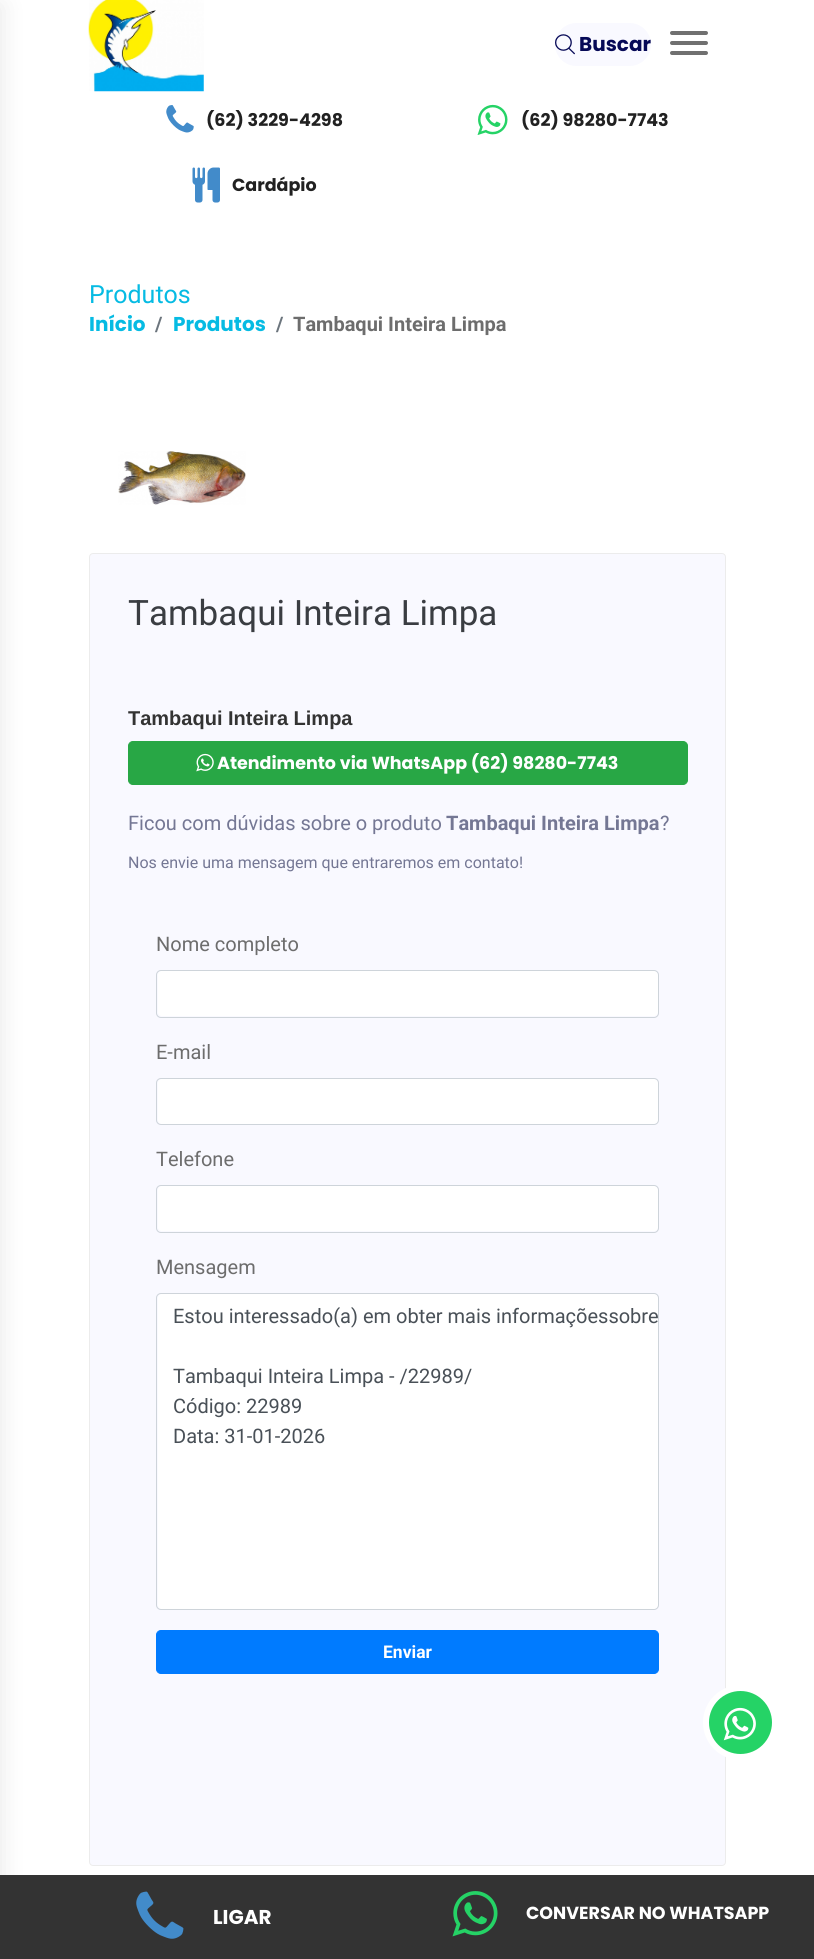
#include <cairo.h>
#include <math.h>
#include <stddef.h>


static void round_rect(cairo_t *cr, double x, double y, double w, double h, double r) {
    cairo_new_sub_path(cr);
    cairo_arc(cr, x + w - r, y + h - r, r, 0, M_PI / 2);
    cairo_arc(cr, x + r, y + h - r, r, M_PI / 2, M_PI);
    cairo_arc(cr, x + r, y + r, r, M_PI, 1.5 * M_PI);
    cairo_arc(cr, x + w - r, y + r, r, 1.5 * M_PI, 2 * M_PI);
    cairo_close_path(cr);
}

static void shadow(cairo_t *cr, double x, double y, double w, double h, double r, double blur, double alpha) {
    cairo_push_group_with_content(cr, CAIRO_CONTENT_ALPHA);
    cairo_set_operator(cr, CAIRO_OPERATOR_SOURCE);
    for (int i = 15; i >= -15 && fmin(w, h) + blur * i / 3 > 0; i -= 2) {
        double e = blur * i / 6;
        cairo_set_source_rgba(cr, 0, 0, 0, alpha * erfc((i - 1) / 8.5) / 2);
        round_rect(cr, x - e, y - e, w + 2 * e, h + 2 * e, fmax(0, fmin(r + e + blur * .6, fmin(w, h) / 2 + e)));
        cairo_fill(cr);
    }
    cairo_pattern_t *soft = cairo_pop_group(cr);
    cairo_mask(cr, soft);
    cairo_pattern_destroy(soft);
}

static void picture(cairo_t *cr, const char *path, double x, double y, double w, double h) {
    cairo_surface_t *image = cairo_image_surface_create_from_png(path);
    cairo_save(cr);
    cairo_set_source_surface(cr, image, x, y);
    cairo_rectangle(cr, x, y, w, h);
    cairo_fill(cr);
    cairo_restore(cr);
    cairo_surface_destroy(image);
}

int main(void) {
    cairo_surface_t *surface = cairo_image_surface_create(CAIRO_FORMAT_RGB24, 814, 1959);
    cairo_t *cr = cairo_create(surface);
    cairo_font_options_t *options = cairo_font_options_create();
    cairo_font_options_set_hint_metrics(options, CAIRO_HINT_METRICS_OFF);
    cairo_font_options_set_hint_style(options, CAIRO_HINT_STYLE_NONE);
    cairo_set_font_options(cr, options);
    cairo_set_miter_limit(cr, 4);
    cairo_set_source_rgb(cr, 1, 1, 1);
    cairo_paint(cr);
    cairo_set_source_rgb(cr, 0, 0, 0);
    shadow(cr, -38, 6, 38, 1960, 0, 12.5, 0.1);
    picture(cr, "img1.png", 88, 0, 116, 92);
    cairo_set_source_rgb(cr, 0.973, 0.973, 1);
    round_rect(cr, 555, 23, 96, 43, 21.5);
    cairo_fill(cr);
    picture(cr, "img2.png", 555, 34, 20, 21);
    cairo_select_font_face(cr, "Poppins", CAIRO_FONT_SLANT_NORMAL, CAIRO_FONT_WEIGHT_BOLD);
    cairo_set_font_size(cr, 20);
    cairo_set_source_rgb(cr, 0.027, 0.039, 0.341);
    cairo_move_to(cr, 579, 51);
    cairo_show_text(cr, "Buscar");
    cairo_set_source_rgb(cr, 0.439, 0.439, 0.439);
    round_rect(cr, 670, 31, 38, 4, 2);
    cairo_fill(cr);
    round_rect(cr, 670, 41, 38, 4, 2);
    cairo_fill(cr);
    round_rect(cr, 670, 51, 38, 4, 2);
    cairo_fill(cr);
    picture(cr, "img3.png", 166, 105, 28, 28);
    cairo_set_font_size(cr, 17.5);
    cairo_set_source_rgb(cr, 0.129, 0.129, 0.129);
    cairo_move_to(cr, 206, 126);
    cairo_show_text(cr, "(62) 3229-4298");
    picture(cr, "img4.png", 477, 104, 31, 31);
    cairo_move_to(cr, 521, 126);
    cairo_show_text(cr, "(62) 98280-7743");
    picture(cr, "img5.png", 192, 167, 28, 36);
    cairo_move_to(cr, 232, 191);
    cairo_show_text(cr, "Cardápio");
    cairo_select_font_face(cr, "Roboto", CAIRO_FONT_SLANT_NORMAL, CAIRO_FONT_WEIGHT_NORMAL);
    cairo_set_font_size(cr, 25);
    cairo_set_source_rgb(cr, 0.027, 0.733, 0.89);
    cairo_move_to(cr, 89, 303);
    cairo_show_text(cr, "Produtos");
    cairo_select_font_face(cr, "Poppins", CAIRO_FONT_SLANT_NORMAL, CAIRO_FONT_WEIGHT_BOLD);
    cairo_set_font_size(cr, 20);
    cairo_move_to(cr, 89, 331);
    cairo_show_text(cr, "Início");
    cairo_select_font_face(cr, "Roboto", CAIRO_FONT_SLANT_NORMAL, CAIRO_FONT_WEIGHT_BOLD);
    cairo_set_source_rgb(cr, 0.424, 0.459, 0.49);
    cairo_move_to(cr, 155, 331);
    cairo_show_text(cr, "/");
    cairo_select_font_face(cr, "Poppins", CAIRO_FONT_SLANT_NORMAL, CAIRO_FONT_WEIGHT_BOLD);
    cairo_set_source_rgb(cr, 0.027, 0.733, 0.89);
    cairo_move_to(cr, 173, 331);
    cairo_show_text(cr, "Produtos");
    cairo_select_font_face(cr, "Roboto", CAIRO_FONT_SLANT_NORMAL, CAIRO_FONT_WEIGHT_BOLD);
    cairo_set_source_rgb(cr, 0.424, 0.459, 0.49);
    cairo_move_to(cr, 276, 331);
    cairo_show_text(cr, "/");
    cairo_set_source_rgb(cr, 0.427, 0.427, 0.427);
    cairo_move_to(cr, 293, 331);
    cairo_show_text(cr, "Tambaqui Inteira Limpa");
    picture(cr, "img6.png", 118, 451, 128, 54);
    cairo_set_source_rgb(cr, 0.973, 0.973, 1);
    round_rect(cr, 89.5, 553.5, 636, 1312, 3.5);
    cairo_fill_preserve(cr);
    cairo_set_source_rgb(cr, 0.922, 0.922, 0.922);
    cairo_set_line_width(cr, 1);
    cairo_stroke(cr);
    cairo_select_font_face(cr, "Roboto", CAIRO_FONT_SLANT_NORMAL, CAIRO_FONT_WEIGHT_NORMAL);
    cairo_set_font_size(cr, 35);
    cairo_set_source_rgb(cr, 0.227, 0.239, 0.259);
    cairo_move_to(cr, 128, 625);
    cairo_show_text(cr, "Tambaqui Inteira Limpa");
    cairo_select_font_face(cr, "Liberation Sans", CAIRO_FONT_SLANT_NORMAL, CAIRO_FONT_WEIGHT_BOLD);
    cairo_set_font_size(cr, 20);
    cairo_set_source_rgb(cr, 0.2, 0.2, 0.2);
    cairo_move_to(cr, 128, 725);
    cairo_show_text(cr, "Tambaqui Inteira Limpa");
    cairo_set_source_rgb(cr, 0.157, 0.655, 0.271);
    round_rect(cr, 128.5, 741.5, 559, 43, 4.5);
    cairo_fill_preserve(cr);
    cairo_stroke(cr);
    picture(cr, "img7.png", 196, 753, 18, 19);
    cairo_select_font_face(cr, "Poppins", CAIRO_FONT_SLANT_NORMAL, CAIRO_FONT_WEIGHT_BOLD);
    cairo_set_font_size(cr, 17.5);
    cairo_set_source_rgb(cr, 1, 1, 1);
    cairo_move_to(cr, 217, 769);
    cairo_show_text(cr, "Atendimento via WhatsApp (62) 98280-7743");
    cairo_select_font_face(cr, "Roboto", CAIRO_FONT_SLANT_NORMAL, CAIRO_FONT_WEIGHT_NORMAL);
    cairo_set_font_size(cr, 20);
    cairo_set_source_rgb(cr, 0.455, 0.467, 0.58);
    cairo_move_to(cr, 128, 830);
    cairo_show_text(cr, "Ficou com dúvidas sobre o produto");
    cairo_select_font_face(cr, "Roboto", CAIRO_FONT_SLANT_NORMAL, CAIRO_FONT_WEIGHT_BOLD);
    cairo_move_to(cr, 446, 830);
    cairo_show_text(cr, "Tambaqui Inteira Limpa");
    cairo_select_font_face(cr, "Roboto", CAIRO_FONT_SLANT_NORMAL, CAIRO_FONT_WEIGHT_NORMAL);
    cairo_move_to(cr, 660, 830);
    cairo_show_text(cr, "?");
    cairo_set_font_size(cr, 16);
    cairo_move_to(cr, 128, 868);
    cairo_show_text(cr, "Nos envie uma mensagem que entraremos em contato!");
    cairo_set_font_size(cr, 20);
    cairo_set_source_rgb(cr, 0.427, 0.427, 0.427);
    cairo_move_to(cr, 156, 951);
    cairo_show_text(cr, "Nome completo");
    cairo_set_source_rgb(cr, 1, 1, 1);
    round_rect(cr, 158, 971, 500, 45, 4);
    cairo_fill(cr);
    round_rect(cr, 156.5, 970.5, 502, 47, 4.5);
    cairo_set_source_rgb(cr, 0.808, 0.831, 0.855);
    cairo_stroke(cr);
    cairo_set_source_rgb(cr, 0.427, 0.427, 0.427);
    cairo_move_to(cr, 156, 1059);
    cairo_show_text(cr, "E-mail");
    cairo_set_source_rgb(cr, 1, 1, 1);
    round_rect(cr, 158, 1079, 500, 45, 4);
    cairo_fill(cr);
    round_rect(cr, 156.5, 1078.5, 502, 46, 4.5);
    cairo_set_source_rgb(cr, 0.808, 0.831, 0.855);
    cairo_stroke(cr);
    cairo_set_source_rgb(cr, 0.427, 0.427, 0.427);
    cairo_move_to(cr, 156, 1166);
    cairo_show_text(cr, "Telefone");
    cairo_set_source_rgb(cr, 1, 1, 1);
    round_rect(cr, 158, 1186, 500, 45, 4);
    cairo_fill(cr);
    round_rect(cr, 156.5, 1185.5, 502, 47, 4.5);
    cairo_set_source_rgb(cr, 0.808, 0.831, 0.855);
    cairo_stroke(cr);
    cairo_set_source_rgb(cr, 0.427, 0.427, 0.427);
    cairo_move_to(cr, 156, 1274);
    cairo_show_text(cr, "Mensagem");
    cairo_set_source_rgb(cr, 1, 1, 1);
    round_rect(cr, 158, 1294, 500, 315, 4);
    cairo_fill(cr);
    round_rect(cr, 156.5, 1293.5, 502, 316, 4.5);
    cairo_set_source_rgb(cr, 0.808, 0.831, 0.855);
    cairo_stroke(cr);
    cairo_set_source_rgb(cr, 0.286, 0.314, 0.341);
    cairo_move_to(cr, 173, 1323);
    cairo_show_text(cr, "Estou interessado(a) em obter mais informaçõessobre");
    cairo_move_to(cr, 173, 1383);
    cairo_show_text(cr, "Tambaqui Inteira Limpa - /22989/");
    cairo_move_to(cr, 173, 1413);
    cairo_show_text(cr, "Código: 22989");
    cairo_move_to(cr, 173, 1443);
    cairo_show_text(cr, "Data: 31-01-2026");
    cairo_set_source_rgb(cr, 0, 0.482, 1);
    round_rect(cr, 156.5, 1630.5, 502, 43, 4.5);
    cairo_fill_preserve(cr);
    cairo_stroke(cr);
    cairo_select_font_face(cr, "Roboto", CAIRO_FONT_SLANT_NORMAL, CAIRO_FONT_WEIGHT_BOLD);
    cairo_set_font_size(cr, 17.5);
    cairo_set_source_rgb(cr, 1, 1, 1);
    cairo_move_to(cr, 383, 1658);
    cairo_show_text(cr, "Enviar");
    cairo_set_source_rgb(cr, 0.145, 0.827, 0.4);
    cairo_new_path(cr);
    cairo_arc(cr, 740.5, 1722.5, 34.5, 0, 2 * M_PI);
    cairo_fill_preserve(cr);
    cairo_set_source_rgb(cr, 1, 1, 1);
    cairo_set_line_width(cr, 6);
    cairo_stroke(cr);
    picture(cr, "img8.png", 723, 1707, 33, 34);
    cairo_set_source_rgb(cr, 0.2, 0.2, 0.2);
    cairo_rectangle(cr, 0, 1875, 814, 84);
    cairo_fill(cr);
    picture(cr, "img9.png", 136, 1891, 48, 48);
    cairo_select_font_face(cr, "Poppins", CAIRO_FONT_SLANT_NORMAL, CAIRO_FONT_WEIGHT_BOLD);
    cairo_set_font_size(cr, 20);
    cairo_set_source_rgb(cr, 1, 1, 1);
    cairo_move_to(cr, 213, 1924);
    cairo_show_text(cr, "LIGAR");
    picture(cr, "img10.png", 452, 1891, 46, 46);
    cairo_set_font_size(cr, 17.5);
    cairo_move_to(cr, 526, 1919);
    cairo_show_text(cr, "CONVERSAR NO WHATSAPP");
    cairo_surface_write_to_png(surface, "page.png");
    cairo_font_options_destroy(options);
    cairo_destroy(cr);
    cairo_surface_destroy(surface);
    return 0;
}
